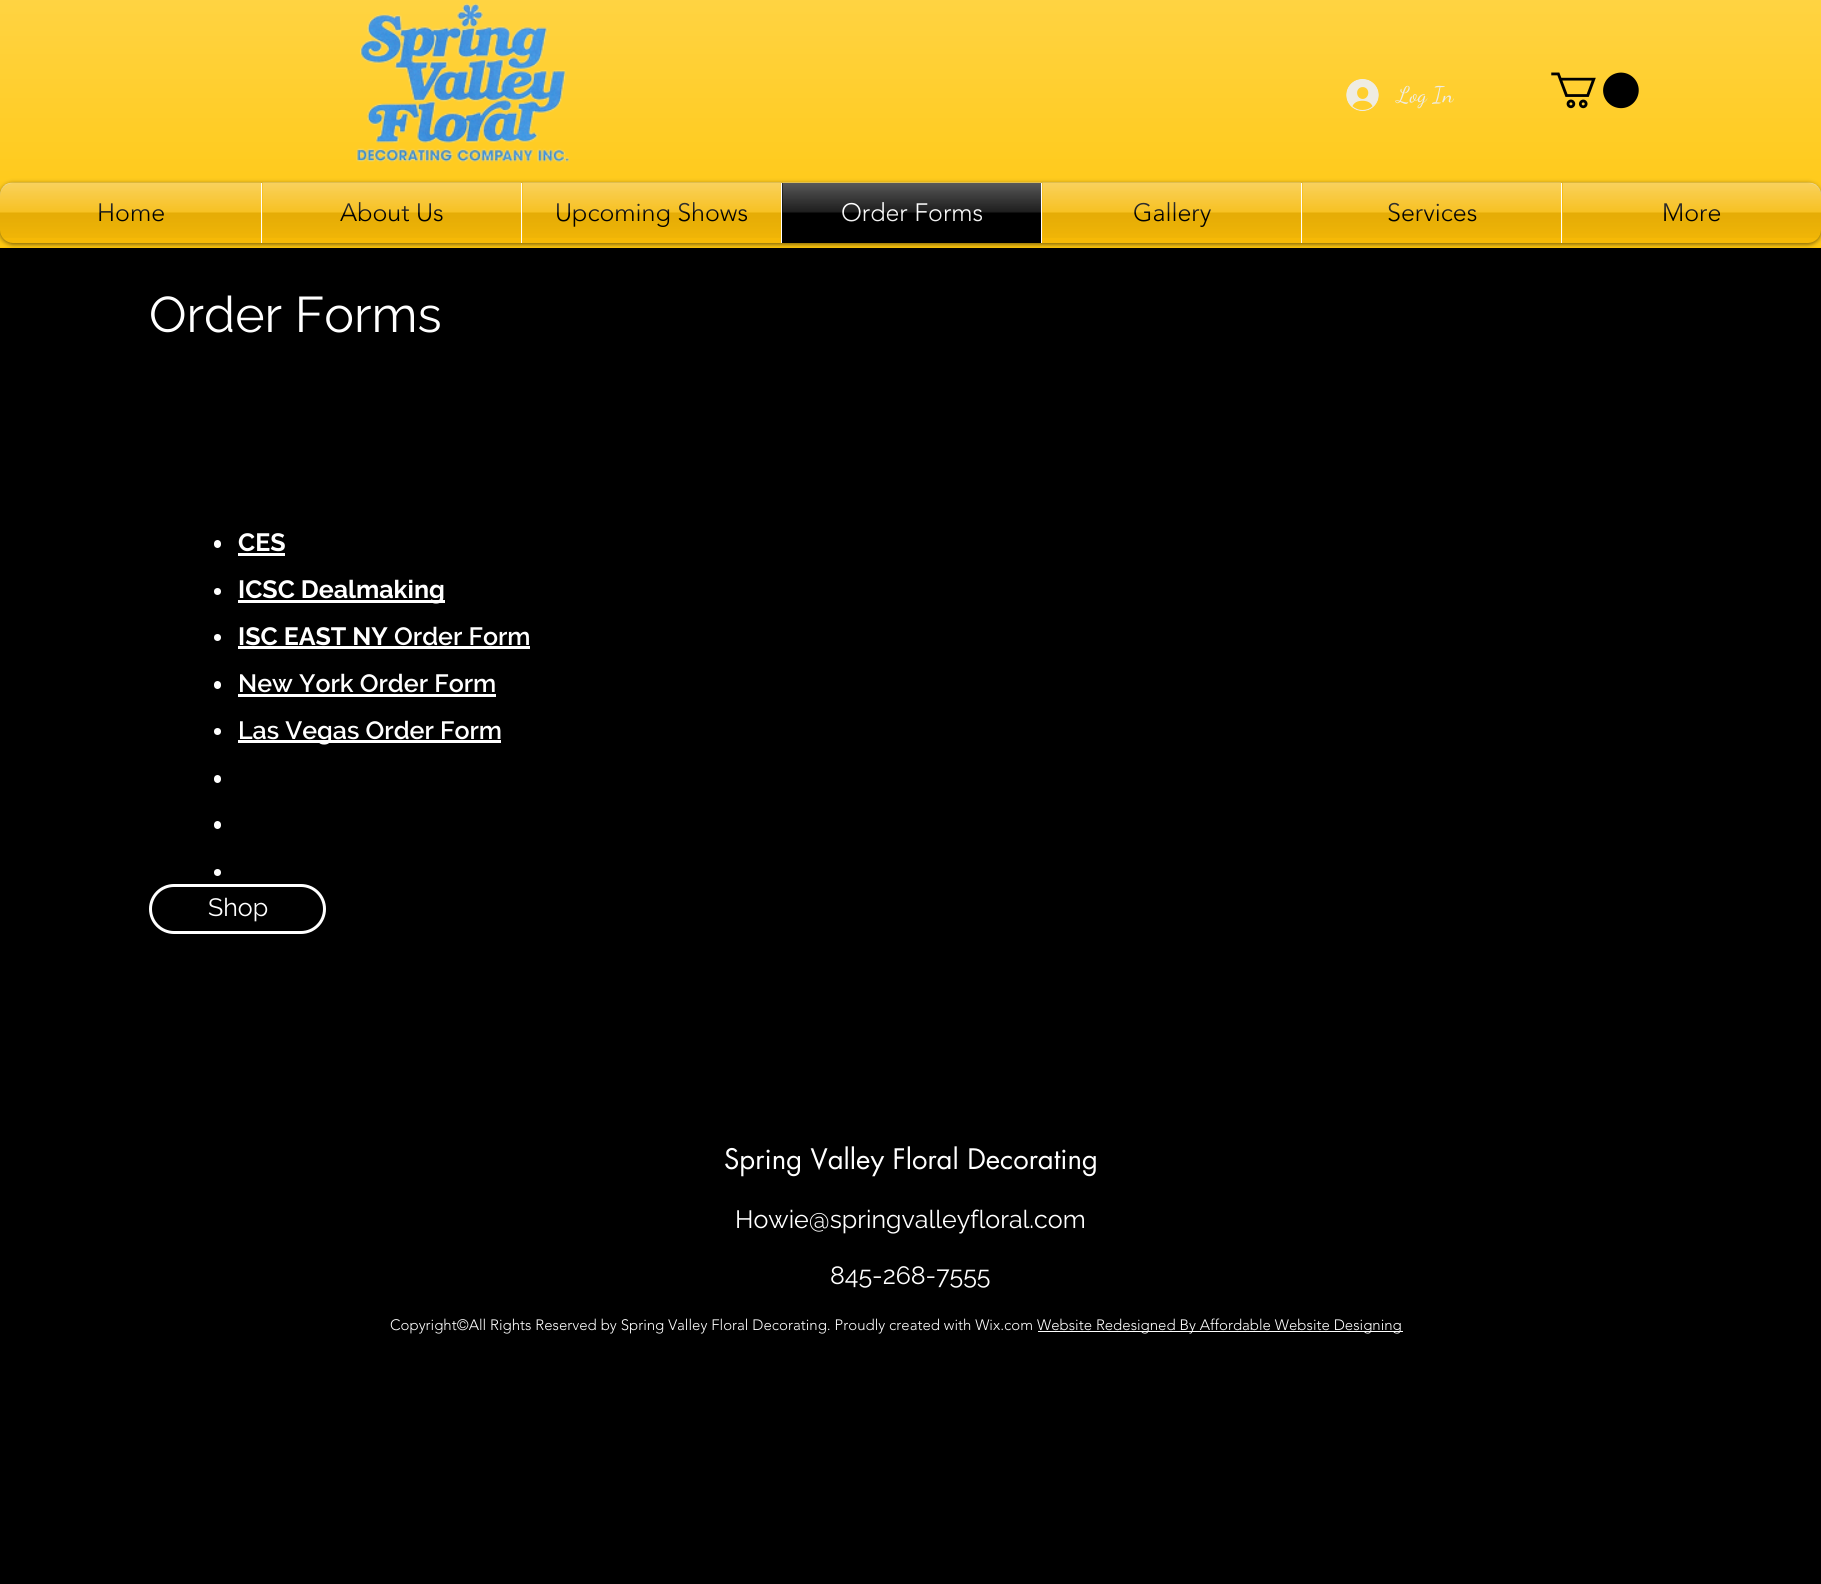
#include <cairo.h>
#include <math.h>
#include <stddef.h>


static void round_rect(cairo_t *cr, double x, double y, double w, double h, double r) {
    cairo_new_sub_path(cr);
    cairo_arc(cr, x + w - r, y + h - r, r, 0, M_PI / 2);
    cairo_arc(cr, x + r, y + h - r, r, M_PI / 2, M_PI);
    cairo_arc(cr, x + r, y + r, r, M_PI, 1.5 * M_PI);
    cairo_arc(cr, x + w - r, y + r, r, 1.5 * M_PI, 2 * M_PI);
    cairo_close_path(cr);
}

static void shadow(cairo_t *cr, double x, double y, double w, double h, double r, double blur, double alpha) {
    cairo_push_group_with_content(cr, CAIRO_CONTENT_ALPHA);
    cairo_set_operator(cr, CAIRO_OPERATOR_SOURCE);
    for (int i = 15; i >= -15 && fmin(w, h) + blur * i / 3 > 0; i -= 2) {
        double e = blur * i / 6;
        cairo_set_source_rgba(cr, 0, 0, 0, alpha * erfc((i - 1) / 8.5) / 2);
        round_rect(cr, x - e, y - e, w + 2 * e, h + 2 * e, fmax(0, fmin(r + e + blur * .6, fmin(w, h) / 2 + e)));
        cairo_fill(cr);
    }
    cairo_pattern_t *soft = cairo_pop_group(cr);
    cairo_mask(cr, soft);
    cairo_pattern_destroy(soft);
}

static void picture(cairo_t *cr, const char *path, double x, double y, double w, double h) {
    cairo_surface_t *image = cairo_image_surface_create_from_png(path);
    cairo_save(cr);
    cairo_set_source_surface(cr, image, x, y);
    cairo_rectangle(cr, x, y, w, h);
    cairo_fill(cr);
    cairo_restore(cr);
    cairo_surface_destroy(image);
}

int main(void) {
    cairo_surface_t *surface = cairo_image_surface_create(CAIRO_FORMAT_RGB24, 1821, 1584);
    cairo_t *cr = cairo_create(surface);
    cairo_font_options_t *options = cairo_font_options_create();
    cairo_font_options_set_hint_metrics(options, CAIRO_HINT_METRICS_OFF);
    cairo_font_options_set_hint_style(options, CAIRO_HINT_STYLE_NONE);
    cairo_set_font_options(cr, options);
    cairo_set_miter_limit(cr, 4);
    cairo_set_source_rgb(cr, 0, 0, 0);
    cairo_paint(cr);
    cairo_set_source_rgb(cr, 1, 0.769, 0);
    cairo_rectangle(cr, 0, 0, 1821, 248);
    cairo_fill(cr);
    picture(cr, "img1.png", 0, 0, 1821, 248);
    picture(cr, "img2.png", 356, 3, 214, 160);
    picture(cr, "img3.png", 1551, 72, 88, 37);
    picture(cr, "img4.png", 1346, 79, 33, 32);
    cairo_select_font_face(cr, "Dancing Script", CAIRO_FONT_SLANT_NORMAL, CAIRO_FONT_WEIGHT_NORMAL);
    cairo_set_font_size(cr, 22.5);
    cairo_set_source_rgb(cr, 0.937, 0.925, 0.886);
    cairo_move_to(cr, 1397, 102);
    cairo_show_text(cr, "Log In");
    cairo_set_source_rgb(cr, 0, 0, 0);
    shadow(cr, 0, 184, 1821, 60, 13, 2.5, 0.6);
    picture(cr, "img5.png", 0, 182, 1821, 55);
    cairo_set_source_rgb(cr, 0.961, 0.725, 0.027);
    cairo_new_path(cr);
    cairo_move_to(cr, 13, 183);
    cairo_line_to(cr, 261, 183);
    cairo_line_to(cr, 261, 243);
    cairo_line_to(cr, 13, 243);
    cairo_curve_to(cr, 6, 243, 0, 237, 0, 230);
    cairo_line_to(cr, 0, 196);
    cairo_curve_to(cr, 0, 189, 6, 183, 13, 183);
    cairo_close_path(cr);
    cairo_fill(cr);
    cairo_select_font_face(cr, "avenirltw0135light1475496 Light", CAIRO_FONT_SLANT_NORMAL, CAIRO_FONT_WEIGHT_NORMAL);
    cairo_set_font_size(cr, 25);
    cairo_set_source_rgb(cr, 0, 0, 0);
    cairo_move_to(cr, 97, 221);
    cairo_show_text(cr, "Home");
    picture(cr, "img6.png", 0, 182, 261, 56);
    cairo_set_source_rgb(cr, 0.961, 0.725, 0.027);
    cairo_rectangle(cr, 262, 183, 259, 60);
    cairo_fill(cr);
    cairo_set_source_rgb(cr, 1, 1, 1);
    cairo_rectangle(cr, 261, 183, 1, 60);
    cairo_fill(cr);
    cairo_set_source_rgb(cr, 0, 0, 0);
    cairo_move_to(cr, 340, 221);
    cairo_show_text(cr, "About Us");
    picture(cr, "img7.png", 262, 182, 260, 56);
    cairo_set_source_rgb(cr, 0.961, 0.725, 0.027);
    cairo_rectangle(cr, 522, 183, 259, 60);
    cairo_fill(cr);
    cairo_set_source_rgb(cr, 1, 1, 1);
    cairo_rectangle(cr, 521, 183, 1, 60);
    cairo_fill(cr);
    cairo_set_source_rgb(cr, 0, 0, 0);
    cairo_move_to(cr, 555, 221);
    cairo_show_text(cr, "Upcoming Shows");
    picture(cr, "img8.png", 522, 182, 260, 56);
    cairo_rectangle(cr, 782, 183, 259, 60);
    cairo_fill(cr);
    cairo_set_source_rgb(cr, 1, 1, 1);
    cairo_rectangle(cr, 781, 183, 1, 60);
    cairo_fill(cr);
    cairo_move_to(cr, 841, 221);
    cairo_show_text(cr, "Order Forms");
    picture(cr, "img9.png", 782, 182, 260, 40);
    cairo_set_source_rgb(cr, 0.961, 0.725, 0.027);
    cairo_rectangle(cr, 1042, 183, 259, 60);
    cairo_fill(cr);
    cairo_set_source_rgb(cr, 1, 1, 1);
    cairo_rectangle(cr, 1041, 183, 1, 60);
    cairo_fill(cr);
    cairo_set_source_rgb(cr, 0, 0, 0);
    cairo_move_to(cr, 1133, 221);
    cairo_show_text(cr, "Gallery");
    picture(cr, "img10.png", 1042, 182, 260, 56);
    cairo_set_source_rgb(cr, 0.961, 0.725, 0.027);
    cairo_rectangle(cr, 1302, 183, 259, 60);
    cairo_fill(cr);
    cairo_set_source_rgb(cr, 1, 1, 1);
    cairo_rectangle(cr, 1301, 183, 1, 60);
    cairo_fill(cr);
    cairo_set_source_rgb(cr, 0, 0, 0);
    cairo_move_to(cr, 1387, 221);
    cairo_show_text(cr, "Services");
    picture(cr, "img11.png", 1302, 182, 260, 56);
    cairo_set_source_rgb(cr, 0.961, 0.725, 0.027);
    cairo_new_path(cr);
    cairo_move_to(cr, 1561, 183);
    cairo_line_to(cr, 1808, 183);
    cairo_curve_to(cr, 1815, 183, 1821, 189, 1821, 196);
    cairo_line_to(cr, 1821, 230);
    cairo_curve_to(cr, 1821, 237, 1815, 243, 1808, 243);
    cairo_line_to(cr, 1561, 243);
    cairo_close_path(cr);
    cairo_fill(cr);
    cairo_set_source_rgb(cr, 1, 1, 1);
    cairo_rectangle(cr, 1561, 183, 1, 60);
    cairo_fill(cr);
    cairo_set_source_rgb(cr, 0, 0, 0);
    cairo_move_to(cr, 1662, 221);
    cairo_show_text(cr, "More");
    picture(cr, "img12.png", 1562, 182, 259, 56);
    cairo_select_font_face(cr, "Raleway", CAIRO_FONT_SLANT_NORMAL, CAIRO_FONT_WEIGHT_NORMAL);
    cairo_set_font_size(cr, 50);
    cairo_set_source_rgb(cr, 1, 1, 1);
    cairo_move_to(cr, 149, 332);
    cairo_show_text(cr, "Order Forms");
    round_rect(cr, 214, 540, 7, 8, 3.5);
    cairo_fill(cr);
    cairo_select_font_face(cr, "Raleway", CAIRO_FONT_SLANT_NORMAL, CAIRO_FONT_WEIGHT_BOLD);
    cairo_set_font_size(cr, 25);
    cairo_move_to(cr, 238, 551);
    cairo_show_text(cr, "CES");
    cairo_rectangle(cr, 238, 553, 47, 3);
    cairo_fill(cr);
    cairo_arc(cr, 217.5, 591.5, 3.5, 0, 2 * M_PI);
    cairo_fill(cr);
    cairo_rectangle(cr, 238, 600, 207, 3);
    cairo_fill(cr);
    cairo_move_to(cr, 238, 598);
    cairo_show_text(cr, "ICSC Dealmaking");
    cairo_new_path(cr);
    cairo_arc(cr, 217.5, 637.5, 3.5, 0, 2 * M_PI);
    cairo_fill(cr);
    cairo_move_to(cr, 238, 645);
    cairo_show_text(cr, "ISC EAST NY");
    cairo_rectangle(cr, 238, 646, 292, 3);
    cairo_fill(cr);
    cairo_select_font_face(cr, "Raleway SemiBold", CAIRO_FONT_SLANT_NORMAL, CAIRO_FONT_WEIGHT_NORMAL);
    cairo_move_to(cr, 394, 645);
    cairo_show_text(cr, "Order Form");
    round_rect(cr, 214, 681, 7, 8, 3.5);
    cairo_fill(cr);
    cairo_move_to(cr, 238, 692);
    cairo_show_text(cr, "New York Order Form");
    cairo_rectangle(cr, 238, 694, 258, 3);
    cairo_fill(cr);
    cairo_arc(cr, 217.5, 731.5, 3.5, 0, 2 * M_PI);
    cairo_fill(cr);
    cairo_rectangle(cr, 238, 740, 263, 3);
    cairo_fill(cr);
    cairo_move_to(cr, 238, 739);
    cairo_show_text(cr, "Las Vegas Order Form");
    round_rect(cr, 214, 775, 7, 8, 3.5);
    cairo_fill(cr);
    round_rect(cr, 214, 821, 7, 8, 3.5);
    cairo_fill(cr);
    cairo_arc(cr, 217.5, 872.5, 3.5, 0, 2 * M_PI);
    cairo_fill(cr);
    round_rect(cr, 150.5, 885.5, 174, 47, 23.5);
    cairo_set_line_width(cr, 3);
    cairo_stroke(cr);
    cairo_select_font_face(cr, "Raleway", CAIRO_FONT_SLANT_NORMAL, CAIRO_FONT_WEIGHT_NORMAL);
    cairo_move_to(cr, 208, 916);
    cairo_show_text(cr, "Shop");
    cairo_select_font_face(cr, "futura", CAIRO_FONT_SLANT_NORMAL, CAIRO_FONT_WEIGHT_NORMAL);
    cairo_set_font_size(cr, 27.5);
    cairo_move_to(cr, 724, 1169);
    cairo_show_text(cr, "Spring Valley Floral Decorating");
    cairo_select_font_face(cr, "Raleway", CAIRO_FONT_SLANT_NORMAL, CAIRO_FONT_WEIGHT_NORMAL);
    cairo_set_font_size(cr, 25);
    cairo_move_to(cr, 735, 1228);
    cairo_show_text(cr, "Howie@springvalleyfloral.com");
    cairo_move_to(cr, 830, 1284);
    cairo_show_text(cr, "845-268-7555");
    cairo_select_font_face(cr, "avenirltw0135light1475496 Light", CAIRO_FONT_SLANT_NORMAL, CAIRO_FONT_WEIGHT_NORMAL);
    cairo_set_font_size(cr, 15);
    cairo_move_to(cr, 390, 1330);
    cairo_show_text(cr, "Copyright©All Rights Reserved by Spring Valley Floral Decorating. Proudly created with Wix.com");
    cairo_rectangle(cr, 1038, 1331, 365, 1);
    cairo_fill(cr);
    cairo_move_to(cr, 1037, 1330);
    cairo_show_text(cr, "Website Redesigned By Affordable Website Designing");
    cairo_surface_write_to_png(surface, "page.png");
    cairo_font_options_destroy(options);
    cairo_destroy(cr);
    cairo_surface_destroy(surface);
    return 0;
}
